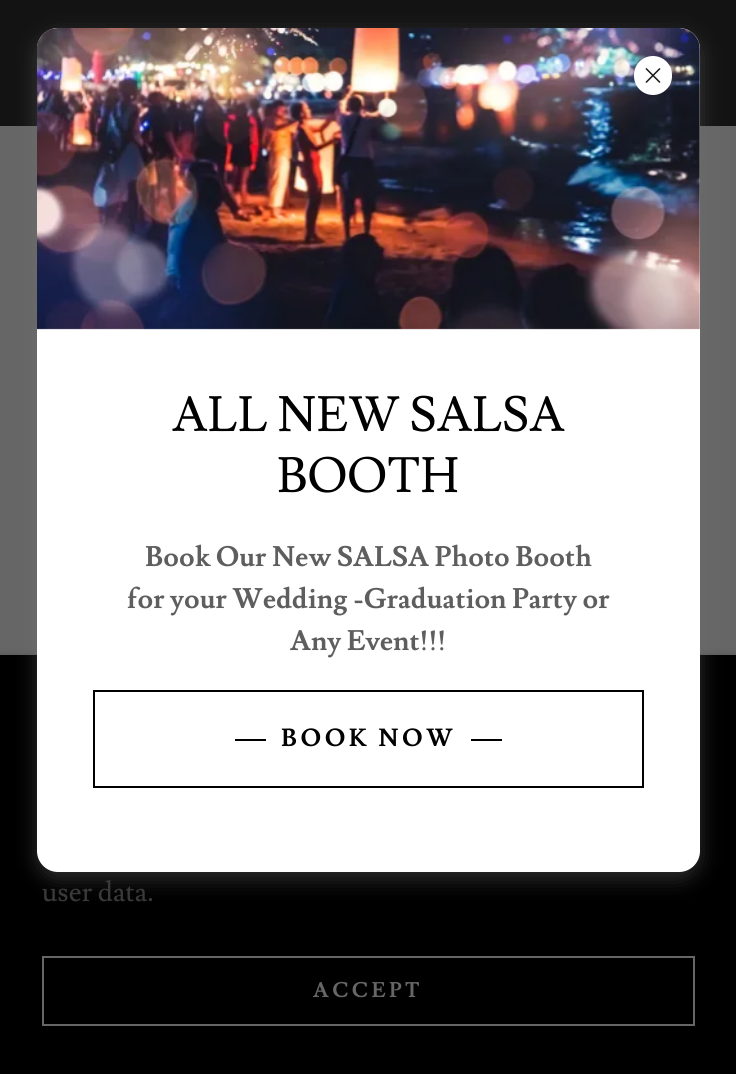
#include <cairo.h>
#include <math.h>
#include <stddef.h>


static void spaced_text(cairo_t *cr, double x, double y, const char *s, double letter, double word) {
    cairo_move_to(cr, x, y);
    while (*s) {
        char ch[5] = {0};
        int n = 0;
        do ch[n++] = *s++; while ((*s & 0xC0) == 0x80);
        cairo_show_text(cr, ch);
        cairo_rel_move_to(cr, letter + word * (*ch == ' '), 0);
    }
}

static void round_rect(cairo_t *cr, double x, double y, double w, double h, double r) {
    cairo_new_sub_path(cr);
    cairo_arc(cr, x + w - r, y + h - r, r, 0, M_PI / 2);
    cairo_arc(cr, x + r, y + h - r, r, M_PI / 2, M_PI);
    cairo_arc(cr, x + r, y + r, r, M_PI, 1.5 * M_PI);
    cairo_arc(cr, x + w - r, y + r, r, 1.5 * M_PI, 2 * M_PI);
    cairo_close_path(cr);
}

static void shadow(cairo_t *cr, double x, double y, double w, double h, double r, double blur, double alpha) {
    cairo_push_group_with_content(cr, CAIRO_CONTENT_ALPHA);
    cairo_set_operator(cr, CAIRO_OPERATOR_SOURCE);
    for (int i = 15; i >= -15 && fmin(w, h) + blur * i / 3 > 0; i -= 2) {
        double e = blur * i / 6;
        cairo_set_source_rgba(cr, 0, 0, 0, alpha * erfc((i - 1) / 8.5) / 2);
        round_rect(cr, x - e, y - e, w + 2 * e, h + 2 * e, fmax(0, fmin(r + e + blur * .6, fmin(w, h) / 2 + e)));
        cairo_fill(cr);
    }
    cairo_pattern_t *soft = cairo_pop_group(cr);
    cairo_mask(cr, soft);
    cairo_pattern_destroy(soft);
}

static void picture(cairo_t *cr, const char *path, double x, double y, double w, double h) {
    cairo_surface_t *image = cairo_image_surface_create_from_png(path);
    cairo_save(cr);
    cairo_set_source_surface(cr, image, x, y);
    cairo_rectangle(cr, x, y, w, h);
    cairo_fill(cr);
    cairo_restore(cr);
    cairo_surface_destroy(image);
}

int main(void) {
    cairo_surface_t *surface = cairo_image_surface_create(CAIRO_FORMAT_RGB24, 736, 1074);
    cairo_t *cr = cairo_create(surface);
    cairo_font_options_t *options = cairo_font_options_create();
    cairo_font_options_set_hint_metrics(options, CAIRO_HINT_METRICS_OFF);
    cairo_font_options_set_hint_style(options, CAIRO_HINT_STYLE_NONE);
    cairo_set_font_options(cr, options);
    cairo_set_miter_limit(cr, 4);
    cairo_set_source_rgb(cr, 0.4, 0.4, 0.4);
    cairo_paint(cr);
    cairo_set_source_rgb(cr, 0.078, 0.078, 0.078);
    cairo_rectangle(cr, 0, 0, 736, 126);
    cairo_fill(cr);
    cairo_set_source_rgb(cr, 0, 0, 0);
    shadow(cr, 0, 658, 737, 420, 0, 5, 0.3);
    cairo_set_source_rgb(cr, 0, 0, 0);
    cairo_rectangle(cr, 0, 655, 736, 419);
    cairo_fill(cr);
    cairo_set_source_rgb(cr, 0.459, 0.459, 0.459);
    shadow(cr, 37, 35, 663, 844, 21, 10.5, 0.4);
    cairo_set_source_rgb(cr, 1, 1, 1);
    round_rect(cr, 37, 28, 663, 844, 21);
    cairo_fill(cr);
    picture(cr, "img2.png", 37, 28, 663, 302);
    round_rect(cr, 634, 56, 38, 39, 19);
    cairo_fill(cr);
    picture(cr, "img1.png", 645, 68, 16, 15);
    cairo_select_font_face(cr, "Lusitana", CAIRO_FONT_SLANT_NORMAL, CAIRO_FONT_WEIGHT_NORMAL);
    cairo_set_font_size(cr, 49);
    cairo_set_source_rgb(cr, 0, 0, 0);
    cairo_move_to(cr, 172, 431);
    cairo_show_text(cr, "ALL NEW SALSA");
    cairo_move_to(cr, 277, 492);
    cairo_show_text(cr, "BOOTH");
    cairo_select_font_face(cr, "Lusitana", CAIRO_FONT_SLANT_NORMAL, CAIRO_FONT_WEIGHT_BOLD);
    cairo_set_font_size(cr, 28);
    cairo_set_source_rgb(cr, 0.369, 0.369, 0.369);
    cairo_move_to(cr, 145, 566);
    cairo_show_text(cr, "Book Our New SALSA Photo Booth");
    cairo_move_to(cr, 127, 608);
    cairo_show_text(cr, "for your Wedding -Graduation Party or");
    cairo_move_to(cr, 290, 650);
    cairo_show_text(cr, "Any Event!!!");
    cairo_rectangle(cr, 94, 691, 549, 96);
    cairo_set_source_rgb(cr, 0, 0, 0);
    cairo_stroke(cr);
    cairo_rectangle(cr, 235, 739, 31, 2);
    cairo_fill(cr);
    cairo_set_font_size(cr, 24.5);
    spaced_text(cr, 281, 746, "BOOK NOW", 3.5, 0);
    cairo_rectangle(cr, 471, 739, 31, 2);
    cairo_fill(cr);
    cairo_select_font_face(cr, "Lusitana", CAIRO_FONT_SLANT_NORMAL, CAIRO_FONT_WEIGHT_NORMAL);
    cairo_set_font_size(cr, 28);
    cairo_set_source_rgb(cr, 0.227, 0.227, 0.227);
    cairo_move_to(cr, 42, 901);
    cairo_show_text(cr, "user data.");
    cairo_rectangle(cr, 43, 957, 651, 68);
    cairo_set_source_rgb(cr, 0.4, 0.4, 0.4);
    cairo_stroke(cr);
    cairo_select_font_face(cr, "Lusitana", CAIRO_FONT_SLANT_NORMAL, CAIRO_FONT_WEIGHT_BOLD);
    cairo_set_font_size(cr, 21);
    spaced_text(cr, 313, 997, "ACCEPT", 3.5, 0);
    cairo_surface_write_to_png(surface, "page.png");
    cairo_font_options_destroy(options);
    cairo_destroy(cr);
    cairo_surface_destroy(surface);
    return 0;
}
